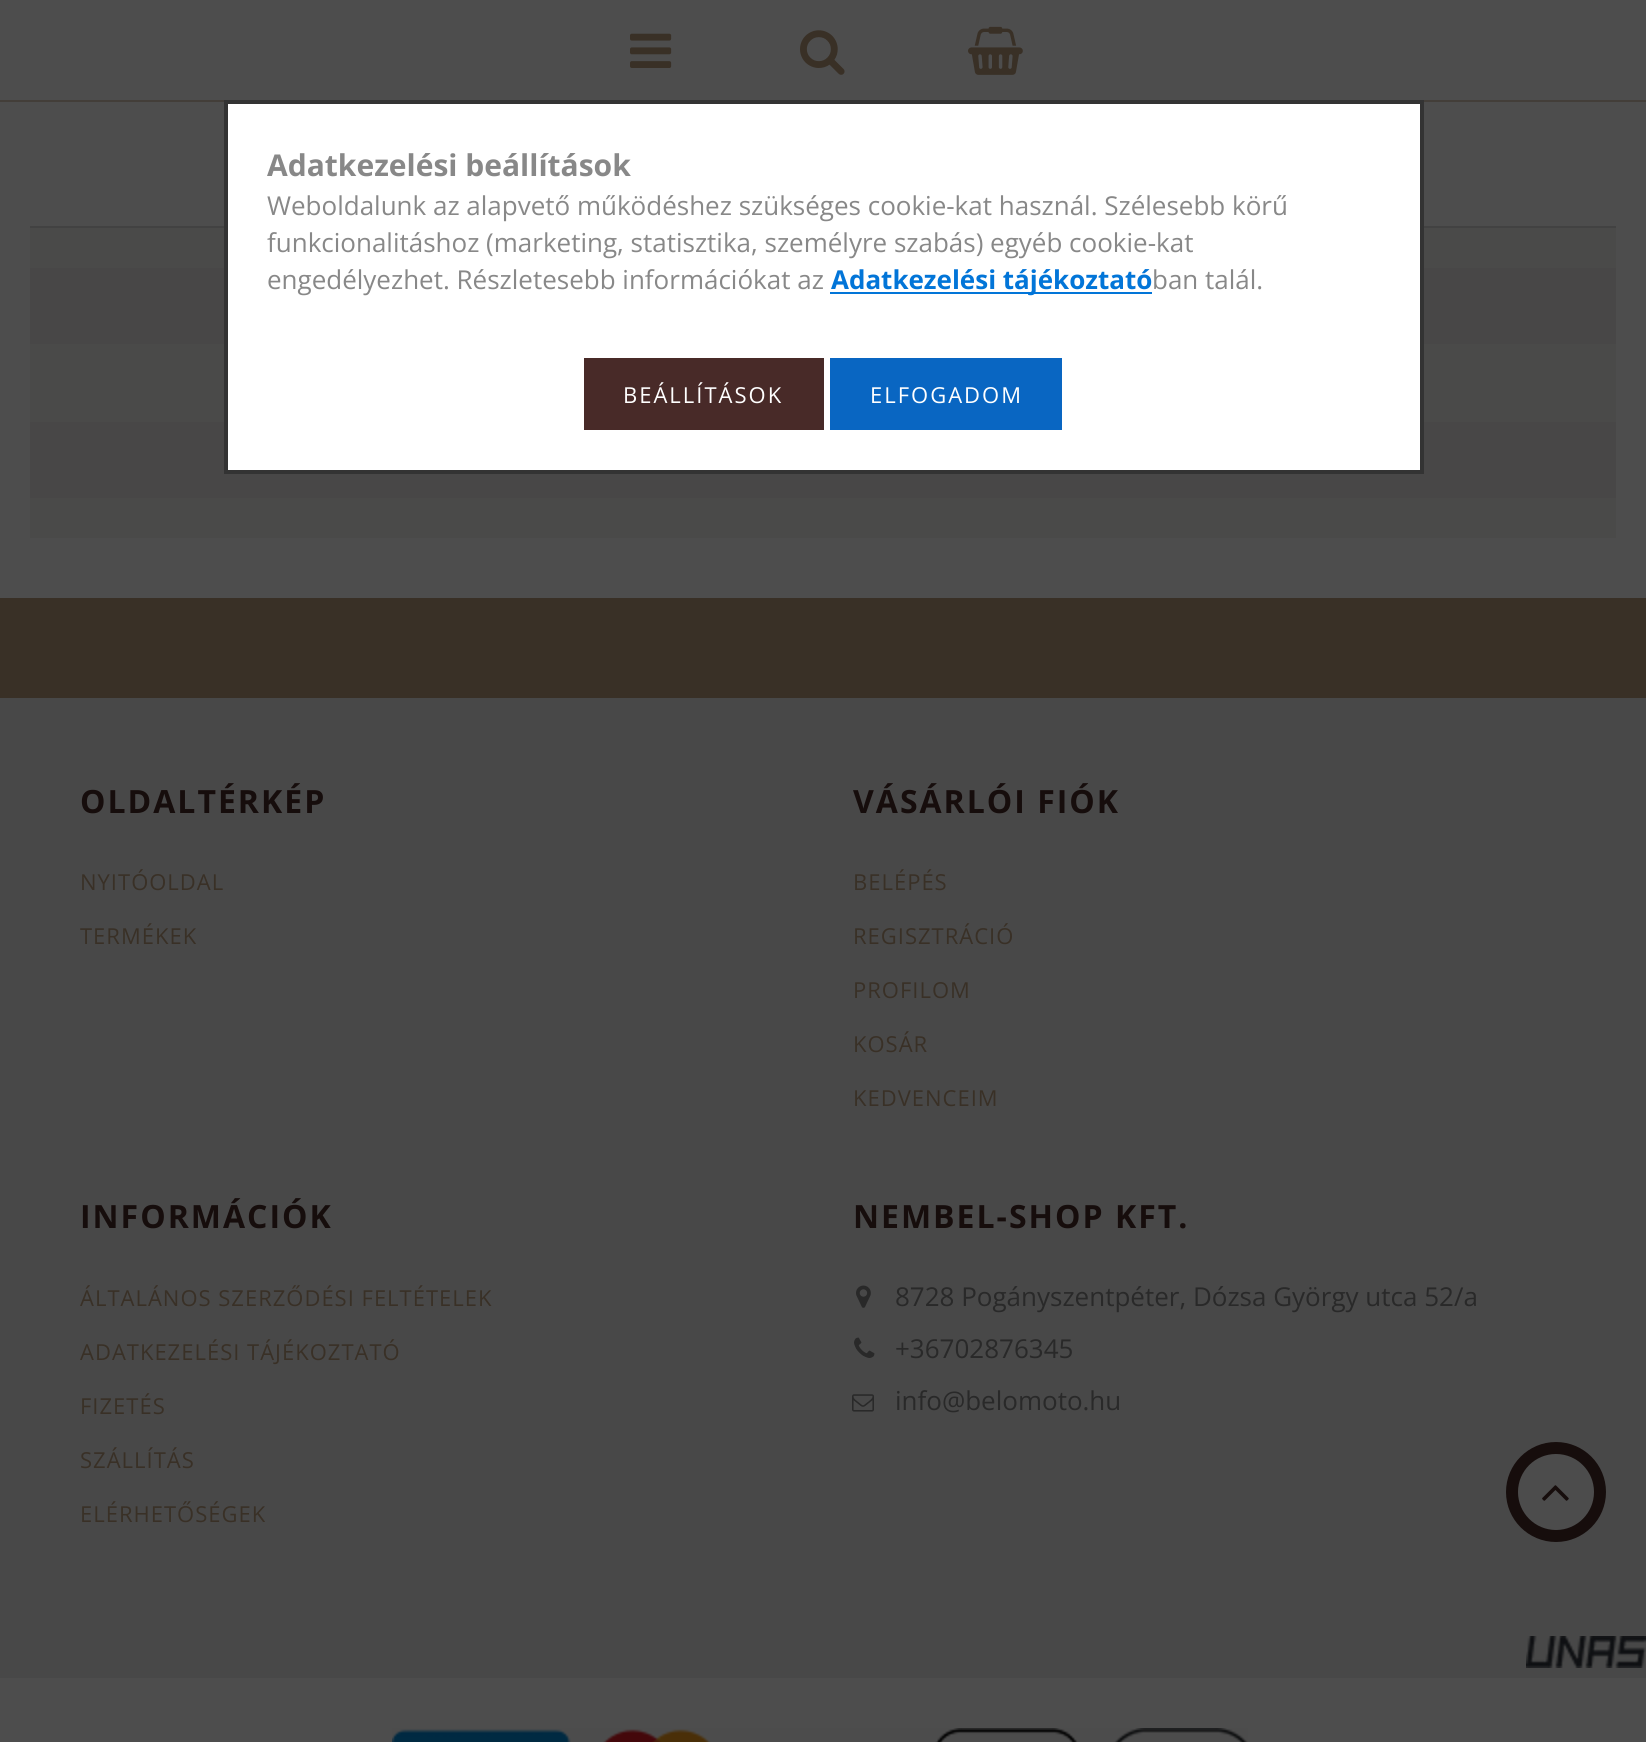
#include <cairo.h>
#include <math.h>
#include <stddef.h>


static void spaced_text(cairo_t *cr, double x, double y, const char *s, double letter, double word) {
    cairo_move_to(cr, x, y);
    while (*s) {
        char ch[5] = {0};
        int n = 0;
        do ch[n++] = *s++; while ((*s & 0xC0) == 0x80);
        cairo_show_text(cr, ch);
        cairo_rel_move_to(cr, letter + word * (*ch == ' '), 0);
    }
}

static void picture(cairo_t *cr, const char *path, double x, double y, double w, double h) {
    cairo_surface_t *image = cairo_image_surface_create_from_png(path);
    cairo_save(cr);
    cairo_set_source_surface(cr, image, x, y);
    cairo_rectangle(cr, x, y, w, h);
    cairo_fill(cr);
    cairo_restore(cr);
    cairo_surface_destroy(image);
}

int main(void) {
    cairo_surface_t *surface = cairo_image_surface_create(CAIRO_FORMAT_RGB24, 1646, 1742);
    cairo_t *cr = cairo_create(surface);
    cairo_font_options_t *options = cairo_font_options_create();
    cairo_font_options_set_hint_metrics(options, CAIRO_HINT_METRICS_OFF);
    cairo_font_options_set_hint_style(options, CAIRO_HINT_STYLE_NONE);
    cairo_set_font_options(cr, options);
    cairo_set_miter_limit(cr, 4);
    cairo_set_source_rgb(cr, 0.302, 0.302, 0.302);
    cairo_paint(cr);
    cairo_set_source_rgb(cr, 0.263, 0.243, 0.224);
    cairo_rectangle(cr, 0, 100, 1646, 2);
    cairo_fill(cr);
    cairo_set_source_rgb(cr, 0.259, 0.259, 0.259);
    cairo_rectangle(cr, 30, 226, 1586, 2);
    cairo_fill(cr);
    cairo_set_source_rgb(cr, 0.29, 0.29, 0.286);
    cairo_rectangle(cr, 30, 228, 1586, 310);
    cairo_fill(cr);
    cairo_set_source_rgb(cr, 0.282, 0.278, 0.278);
    cairo_rectangle(cr, 30, 268, 1586, 76);
    cairo_fill(cr);
    cairo_rectangle(cr, 30, 422, 1586, 76);
    cairo_fill(cr);
    cairo_set_source_rgb(cr, 1, 1, 1);
    cairo_rectangle(cr, 226, 102, 1196, 370);
    cairo_fill_preserve(cr);
    cairo_set_source_rgb(cr, 0.2, 0.2, 0.2);
    cairo_set_line_width(cr, 4);
    cairo_stroke(cr);
    cairo_select_font_face(cr, "Open Sans", CAIRO_FONT_SLANT_NORMAL, CAIRO_FONT_WEIGHT_BOLD);
    cairo_set_font_size(cr, 30);
    cairo_set_source_rgb(cr, 0.533, 0.533, 0.533);
    cairo_move_to(cr, 267, 176);
    cairo_show_text(cr, "Adatkezelési beállítások");
    cairo_select_font_face(cr, "Open Sans", CAIRO_FONT_SLANT_NORMAL, CAIRO_FONT_WEIGHT_NORMAL);
    cairo_set_font_size(cr, 26);
    cairo_move_to(cr, 267, 215);
    cairo_show_text(cr, "Weboldalunk az alapvető működéshez szükséges cookie-kat használ. Szélesebb körű");
    cairo_move_to(cr, 267, 252);
    cairo_show_text(cr, "funkcionalitáshoz (marketing, statisztika, személyre szabás) egyéb cookie-kat");
    cairo_move_to(cr, 267, 289);
    cairo_show_text(cr, "engedélyezhet. Részletesebb információkat az");
    cairo_set_source_rgb(cr, 0.008, 0.459, 0.847);
    cairo_rectangle(cr, 830, 292, 322, 2);
    cairo_fill(cr);
    cairo_select_font_face(cr, "Open Sans", CAIRO_FONT_SLANT_NORMAL, CAIRO_FONT_WEIGHT_BOLD);
    cairo_move_to(cr, 831, 289);
    cairo_show_text(cr, "Adatkezelési tájékoztató");
    cairo_select_font_face(cr, "Open Sans", CAIRO_FONT_SLANT_NORMAL, CAIRO_FONT_WEIGHT_NORMAL);
    cairo_set_source_rgb(cr, 0.533, 0.533, 0.533);
    cairo_move_to(cr, 1152, 289);
    cairo_show_text(cr, "ban talál.");
    cairo_set_source_rgb(cr, 0.282, 0.165, 0.157);
    cairo_rectangle(cr, 584, 358, 240, 72);
    cairo_fill(cr);
    cairo_set_font_size(cr, 22);
    cairo_set_source_rgb(cr, 1, 1, 1);
    spaced_text(cr, 623, 403, "BEÁLLÍTÁSOK", 2, 0);
    cairo_set_source_rgb(cr, 0.039, 0.4, 0.761);
    cairo_rectangle(cr, 830, 358, 232, 72);
    cairo_fill(cr);
    cairo_set_source_rgb(cr, 1, 1, 1);
    spaced_text(cr, 870, 403, "ELFOGADOM", 2, 0);
    picture(cr, "img1.png", 630, 33, 42, 35);
    picture(cr, "img2.png", 800, 30, 45, 45);
    picture(cr, "img3.png", 968, 26, 55, 49);
    cairo_set_source_rgb(cr, 0.224, 0.188, 0.149);
    cairo_rectangle(cr, 0, 598, 1646, 100);
    cairo_fill(cr);
    cairo_set_source_rgb(cr, 0.282, 0.282, 0.282);
    cairo_rectangle(cr, 0, 698, 1646, 980);
    cairo_fill(cr);
    cairo_select_font_face(cr, "Open Sans", CAIRO_FONT_SLANT_NORMAL, CAIRO_FONT_WEIGHT_BOLD);
    cairo_set_font_size(cr, 32);
    cairo_set_source_rgb(cr, 0.086, 0.051, 0.047);
    spaced_text(cr, 80, 813, "OLDALTÉRKÉP", 2, 0);
    cairo_select_font_face(cr, "Open Sans", CAIRO_FONT_SLANT_NORMAL, CAIRO_FONT_WEIGHT_NORMAL);
    cairo_set_font_size(cr, 22);
    cairo_set_source_rgb(cr, 0.224, 0.188, 0.149);
    spaced_text(cr, 80, 890, "NYITÓOLDAL", 1, 0);
    spaced_text(cr, 80, 944, "TERMÉKEK", 1, 0);
    cairo_select_font_face(cr, "Open Sans", CAIRO_FONT_SLANT_NORMAL, CAIRO_FONT_WEIGHT_BOLD);
    cairo_set_font_size(cr, 32);
    cairo_set_source_rgb(cr, 0.086, 0.051, 0.047);
    spaced_text(cr, 853, 813, "VÁSÁRLÓI FIÓK", 2, 0);
    cairo_select_font_face(cr, "Open Sans", CAIRO_FONT_SLANT_NORMAL, CAIRO_FONT_WEIGHT_NORMAL);
    cairo_set_font_size(cr, 22);
    cairo_set_source_rgb(cr, 0.224, 0.188, 0.149);
    spaced_text(cr, 853, 890, "BELÉPÉS", 1, 0);
    spaced_text(cr, 853, 944, "REGISZTRÁCIÓ", 1, 0);
    spaced_text(cr, 853, 998, "PROFILOM", 1, 0);
    spaced_text(cr, 853, 1052, "KOSÁR", 1, 0);
    spaced_text(cr, 853, 1106, "KEDVENCEIM", 1, 0);
    cairo_select_font_face(cr, "Open Sans", CAIRO_FONT_SLANT_NORMAL, CAIRO_FONT_WEIGHT_BOLD);
    cairo_set_font_size(cr, 32);
    cairo_set_source_rgb(cr, 0.086, 0.051, 0.047);
    spaced_text(cr, 80, 1228, "INFORMÁCIÓK", 2, 0);
    cairo_select_font_face(cr, "Open Sans", CAIRO_FONT_SLANT_NORMAL, CAIRO_FONT_WEIGHT_NORMAL);
    cairo_set_font_size(cr, 22);
    cairo_set_source_rgb(cr, 0.224, 0.188, 0.149);
    spaced_text(cr, 80, 1306, "ÁLTALÁNOS SZERZŐDÉSI FELTÉTELEK", 1, 0);
    spaced_text(cr, 80, 1360, "ADATKEZELÉSI TÁJÉKOZTATÓ", 1, 0);
    spaced_text(cr, 80, 1414, "FIZETÉS", 1, 0);
    spaced_text(cr, 80, 1468, "SZÁLLÍTÁS", 1, 0);
    spaced_text(cr, 80, 1522, "ELÉRHETŐSÉGEK", 1, 0);
    cairo_select_font_face(cr, "Open Sans", CAIRO_FONT_SLANT_NORMAL, CAIRO_FONT_WEIGHT_BOLD);
    cairo_set_font_size(cr, 32);
    cairo_set_source_rgb(cr, 0.086, 0.051, 0.047);
    spaced_text(cr, 853, 1228, "NEMBEL-SHOP KFT.", 2, 0);
    picture(cr, "img4.png", 856, 1285, 15, 23);
    cairo_select_font_face(cr, "Open Sans", CAIRO_FONT_SLANT_NORMAL, CAIRO_FONT_WEIGHT_NORMAL);
    cairo_set_font_size(cr, 26);
    cairo_set_source_rgb(cr, 0.161, 0.161, 0.161);
    cairo_move_to(cr, 895, 1306);
    cairo_show_text(cr, "8728 Pogányszentpéter, Dózsa György utca 52/a");
    picture(cr, "img5.png", 854, 1337, 21, 21);
    cairo_move_to(cr, 895, 1358);
    cairo_show_text(cr, "+36702876345");
    picture(cr, "img6.png", 852, 1394, 22, 18);
    cairo_move_to(cr, 895, 1410);
    cairo_show_text(cr, "info@belomoto.hu");
    picture(cr, "img7.png", 1526, 1636, 120, 32);
    picture(cr, "img8.png", 392, 1728, 856, 14);
    cairo_set_source_rgb(cr, 0.298, 0.298, 0.298);
    cairo_arc(cr, 1556, 1492, 44, 0, 2 * M_PI);
    cairo_fill_preserve(cr);
    cairo_set_source_rgb(cr, 0.086, 0.051, 0.047);
    cairo_set_line_width(cr, 12);
    cairo_stroke(cr);
    picture(cr, "img9.png", 1542, 1485, 27, 16);
    cairo_surface_write_to_png(surface, "page.png");
    cairo_font_options_destroy(options);
    cairo_destroy(cr);
    cairo_surface_destroy(surface);
    return 0;
}
